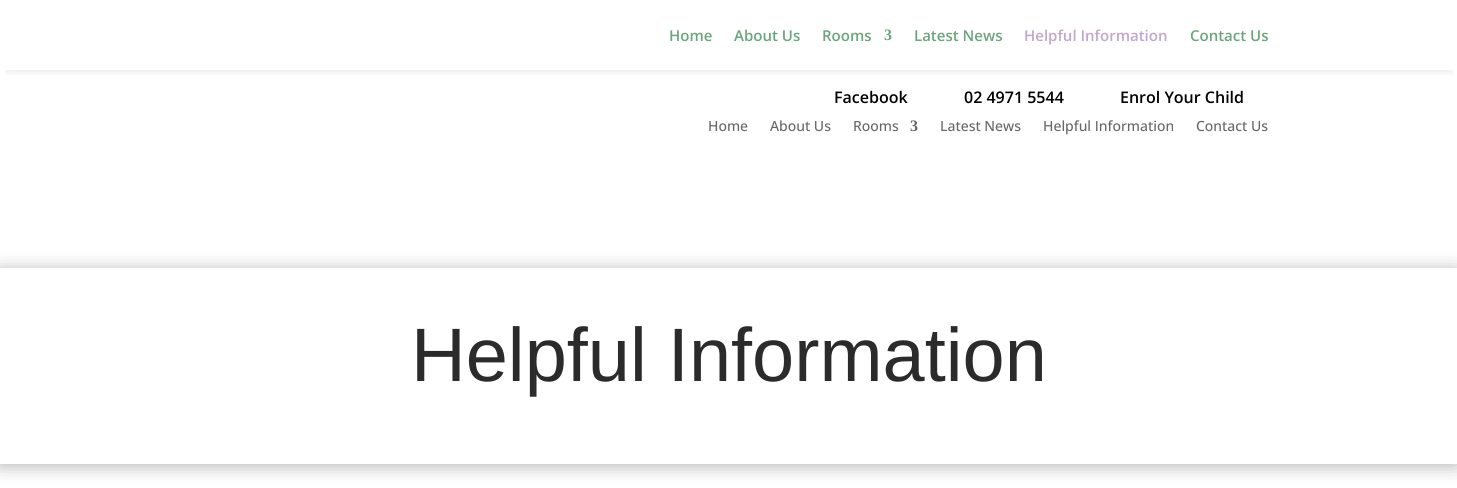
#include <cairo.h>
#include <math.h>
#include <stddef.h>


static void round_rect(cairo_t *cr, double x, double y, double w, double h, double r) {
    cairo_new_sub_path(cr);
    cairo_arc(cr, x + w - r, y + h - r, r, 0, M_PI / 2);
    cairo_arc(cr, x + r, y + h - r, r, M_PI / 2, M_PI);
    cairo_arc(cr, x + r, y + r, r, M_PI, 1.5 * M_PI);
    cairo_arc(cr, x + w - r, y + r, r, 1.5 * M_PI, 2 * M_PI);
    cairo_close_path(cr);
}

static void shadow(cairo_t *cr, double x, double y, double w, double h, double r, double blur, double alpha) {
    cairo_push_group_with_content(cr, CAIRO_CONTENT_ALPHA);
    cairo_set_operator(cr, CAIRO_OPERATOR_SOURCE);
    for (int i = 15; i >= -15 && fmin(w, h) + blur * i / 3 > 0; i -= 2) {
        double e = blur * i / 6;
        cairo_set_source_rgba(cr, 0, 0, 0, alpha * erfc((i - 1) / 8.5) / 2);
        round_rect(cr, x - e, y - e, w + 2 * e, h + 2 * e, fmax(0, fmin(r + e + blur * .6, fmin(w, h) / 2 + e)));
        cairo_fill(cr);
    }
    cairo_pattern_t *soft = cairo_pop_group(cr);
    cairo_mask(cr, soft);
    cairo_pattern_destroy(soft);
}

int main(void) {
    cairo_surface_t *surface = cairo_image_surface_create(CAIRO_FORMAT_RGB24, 1457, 488);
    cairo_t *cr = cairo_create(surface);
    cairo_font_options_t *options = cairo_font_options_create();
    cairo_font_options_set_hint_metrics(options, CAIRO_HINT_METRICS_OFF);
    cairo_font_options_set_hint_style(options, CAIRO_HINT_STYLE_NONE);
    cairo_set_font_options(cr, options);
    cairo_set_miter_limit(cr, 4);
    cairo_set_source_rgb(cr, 1, 1, 1);
    cairo_paint(cr);
    cairo_save(cr);
    cairo_rectangle(cr, 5, 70, 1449, 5);
    cairo_clip(cr);
    cairo_set_source_rgb(cr, 0, 0, 0);
    shadow(cr, 7, 13, 1445, 58, 0, 5, 0.1);
    cairo_restore(cr);
    cairo_select_font_face(cr, "Open Sans SemiBold", CAIRO_FONT_SLANT_NORMAL, CAIRO_FONT_WEIGHT_NORMAL);
    cairo_set_font_size(cr, 15);
    cairo_set_source_rgb(cr, 0.42, 0.647, 0.478);
    cairo_move_to(cr, 669, 41);
    cairo_show_text(cr, "Home");
    cairo_move_to(cr, 734, 41);
    cairo_show_text(cr, "About Us");
    cairo_move_to(cr, 822, 41);
    cairo_show_text(cr, "Rooms");
    cairo_select_font_face(cr, "Liberation Serif", CAIRO_FONT_SLANT_NORMAL, CAIRO_FONT_WEIGHT_BOLD);
    cairo_set_font_size(cr, 16);
    cairo_move_to(cr, 884, 40);
    cairo_show_text(cr, "3");
    cairo_select_font_face(cr, "Open Sans SemiBold", CAIRO_FONT_SLANT_NORMAL, CAIRO_FONT_WEIGHT_NORMAL);
    cairo_set_font_size(cr, 15);
    cairo_move_to(cr, 914, 41);
    cairo_show_text(cr, "Latest News");
    cairo_set_source_rgb(cr, 0.765, 0.647, 0.812);
    cairo_move_to(cr, 1024, 41);
    cairo_show_text(cr, "Helpful Information");
    cairo_set_source_rgb(cr, 0.42, 0.647, 0.478);
    cairo_move_to(cr, 1190, 41);
    cairo_show_text(cr, "Contact Us");
    cairo_set_font_size(cr, 16);
    cairo_set_source_rgb(cr, 0, 0, 0);
    cairo_move_to(cr, 834, 103);
    cairo_show_text(cr, "Facebook");
    cairo_move_to(cr, 964, 103);
    cairo_show_text(cr, "02 4971 5544");
    cairo_move_to(cr, 1120, 103);
    cairo_show_text(cr, "Enrol Your Child");
    cairo_select_font_face(cr, "Open Sans Medium", CAIRO_FONT_SLANT_NORMAL, CAIRO_FONT_WEIGHT_NORMAL);
    cairo_set_font_size(cr, 14);
    cairo_set_source_rgb(cr, 0.4, 0.4, 0.4);
    cairo_move_to(cr, 708, 131);
    cairo_show_text(cr, "Home");
    cairo_move_to(cr, 770, 131);
    cairo_show_text(cr, "About Us");
    cairo_move_to(cr, 853, 131);
    cairo_show_text(cr, "Rooms");
    cairo_select_font_face(cr, "Liberation Serif", CAIRO_FONT_SLANT_NORMAL, CAIRO_FONT_WEIGHT_BOLD);
    cairo_set_font_size(cr, 16);
    cairo_move_to(cr, 910, 131);
    cairo_show_text(cr, "3");
    cairo_select_font_face(cr, "Open Sans Medium", CAIRO_FONT_SLANT_NORMAL, CAIRO_FONT_WEIGHT_NORMAL);
    cairo_set_font_size(cr, 14);
    cairo_move_to(cr, 940, 131);
    cairo_show_text(cr, "Latest News");
    cairo_move_to(cr, 1043, 131);
    cairo_show_text(cr, "Helpful Information");
    cairo_move_to(cr, 1196, 131);
    cairo_show_text(cr, "Contact Us");
    cairo_save(cr);
    cairo_set_fill_rule(cr, CAIRO_FILL_RULE_EVEN_ODD);
    cairo_new_path(cr);
    cairo_move_to(cr, 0, 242);
    cairo_line_to(cr, 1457, 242);
    cairo_line_to(cr, 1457, 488);
    cairo_line_to(cr, 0, 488);
    cairo_close_path(cr);
    cairo_move_to(cr, 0, 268);
    cairo_line_to(cr, 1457, 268);
    cairo_line_to(cr, 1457, 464);
    cairo_line_to(cr, 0, 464);
    cairo_close_path(cr);
    cairo_clip(cr);
    cairo_set_source_rgb(cr, 0, 0, 0);
    shadow(cr, 0, 270, 1457, 196, 0, 9, 0.3);
    cairo_restore(cr);
    cairo_select_font_face(cr, "Liberation Sans", CAIRO_FONT_SLANT_NORMAL, CAIRO_FONT_WEIGHT_NORMAL);
    cairo_set_font_size(cr, 75.75);
    cairo_set_source_rgb(cr, 0.169, 0.169, 0.169);
    cairo_move_to(cr, 411, 381);
    cairo_show_text(cr, "Helpful Information");
    cairo_surface_write_to_png(surface, "page.png");
    cairo_font_options_destroy(options);
    cairo_destroy(cr);
    cairo_surface_destroy(surface);
    return 0;
}
